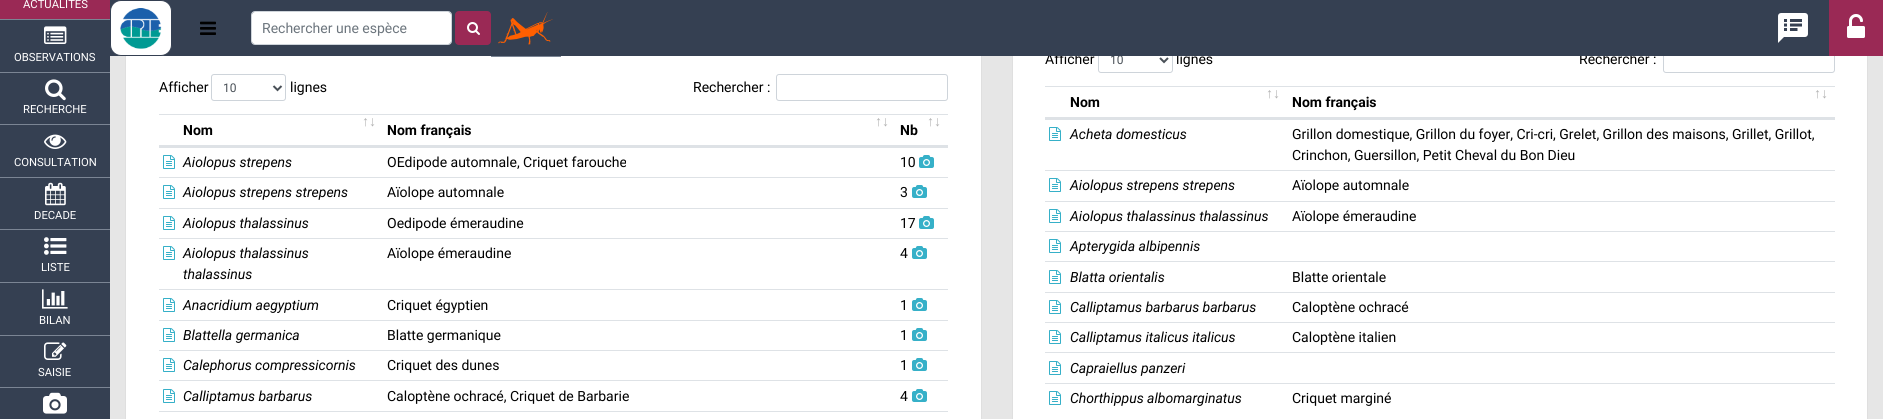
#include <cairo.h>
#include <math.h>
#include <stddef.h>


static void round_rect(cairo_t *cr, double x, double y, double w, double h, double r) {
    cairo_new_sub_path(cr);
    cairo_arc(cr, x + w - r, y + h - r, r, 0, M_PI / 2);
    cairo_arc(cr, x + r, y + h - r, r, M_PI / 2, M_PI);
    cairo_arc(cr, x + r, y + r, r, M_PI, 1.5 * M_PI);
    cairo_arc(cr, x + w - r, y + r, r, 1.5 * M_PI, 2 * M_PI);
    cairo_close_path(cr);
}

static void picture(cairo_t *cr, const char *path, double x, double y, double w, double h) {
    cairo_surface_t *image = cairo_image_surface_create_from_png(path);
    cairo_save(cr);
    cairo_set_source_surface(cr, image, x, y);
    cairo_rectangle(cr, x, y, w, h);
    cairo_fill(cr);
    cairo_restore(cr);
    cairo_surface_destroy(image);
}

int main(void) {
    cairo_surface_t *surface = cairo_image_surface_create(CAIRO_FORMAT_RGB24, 1883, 419);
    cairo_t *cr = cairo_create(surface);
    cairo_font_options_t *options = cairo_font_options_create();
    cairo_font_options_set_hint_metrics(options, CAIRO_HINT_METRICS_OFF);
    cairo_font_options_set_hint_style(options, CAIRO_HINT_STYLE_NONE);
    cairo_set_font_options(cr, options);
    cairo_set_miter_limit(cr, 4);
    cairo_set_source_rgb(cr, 0.208, 0.251, 0.322);
    cairo_paint(cr);
    cairo_set_source_rgb(cr, 0.604, 0.161, 0.333);
    cairo_rectangle(cr, 0, 0, 110, 19);
    cairo_fill(cr);
    cairo_set_source_rgb(cr, 0.482, 0.522, 0.58);
    cairo_rectangle(cr, 0, 19, 110, 1);
    cairo_fill(cr);
    cairo_select_font_face(cr, "Roboto", CAIRO_FONT_SLANT_NORMAL, CAIRO_FONT_WEIGHT_NORMAL);
    cairo_set_font_size(cr, 11.25);
    cairo_set_source_rgb(cr, 1, 1, 1);
    cairo_move_to(cr, 23, 8);
    cairo_show_text(cr, "ACTUALITÉS");
    cairo_set_source_rgb(cr, 0.482, 0.522, 0.58);
    cairo_rectangle(cr, 0, 72, 110, 1);
    cairo_fill(cr);
    picture(cr, "img1.png", 44, 26, 23, 18);
    cairo_set_source_rgb(cr, 1, 1, 1);
    cairo_move_to(cr, 14, 61);
    cairo_show_text(cr, "OBSERVATIONS");
    cairo_set_source_rgb(cr, 0.482, 0.522, 0.58);
    cairo_rectangle(cr, 0, 124, 110, 1);
    cairo_fill(cr);
    picture(cr, "img2.png", 45, 79, 21, 22);
    cairo_set_source_rgb(cr, 1, 1, 1);
    cairo_move_to(cr, 23, 113);
    cairo_show_text(cr, "RECHERCHE");
    cairo_set_source_rgb(cr, 0.482, 0.522, 0.58);
    cairo_rectangle(cr, 0, 177, 110, 1);
    cairo_fill(cr);
    picture(cr, "img3.png", 44, 134, 23, 15);
    cairo_set_source_rgb(cr, 1, 1, 1);
    cairo_move_to(cr, 14, 166);
    cairo_show_text(cr, "CONSULTATION");
    cairo_set_source_rgb(cr, 0.482, 0.522, 0.58);
    cairo_rectangle(cr, 0, 229, 110, 1);
    cairo_fill(cr);
    picture(cr, "img4.png", 45, 182, 21, 24);
    cairo_set_source_rgb(cr, 1, 1, 1);
    cairo_move_to(cr, 34, 219);
    cairo_show_text(cr, "DECADE");
    cairo_set_source_rgb(cr, 0.482, 0.522, 0.58);
    cairo_rectangle(cr, 0, 282, 110, 1);
    cairo_fill(cr);
    picture(cr, "img5.png", 44, 237, 23, 18);
    cairo_set_source_rgb(cr, 1, 1, 1);
    cairo_move_to(cr, 41, 271);
    cairo_show_text(cr, "LISTE");
    cairo_set_source_rgb(cr, 0.482, 0.522, 0.58);
    cairo_rectangle(cr, 0, 335, 110, 1);
    cairo_fill(cr);
    picture(cr, "img6.png", 42, 289, 26, 20);
    cairo_set_source_rgb(cr, 1, 1, 1);
    cairo_move_to(cr, 39, 324);
    cairo_show_text(cr, "BILAN");
    cairo_set_source_rgb(cr, 0.482, 0.522, 0.58);
    cairo_rectangle(cr, 0, 387, 110, 1);
    cairo_fill(cr);
    picture(cr, "img7.png", 44, 342, 23, 18);
    cairo_set_source_rgb(cr, 1, 1, 1);
    cairo_move_to(cr, 38, 376);
    cairo_show_text(cr, "SAISIE");
    picture(cr, "img8.png", 43, 392, 24, 22);
    cairo_set_source_rgb(cr, 0.902, 0.902, 0.902);
    cairo_rectangle(cr, 110, 56, 1773, 363);
    cairo_fill(cr);
    cairo_set_source_rgb(cr, 1, 1, 1);
    cairo_rectangle(cr, 126, 56, 855, 363);
    cairo_fill(cr);
    cairo_rectangle(cr, 125.5, -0.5, 856, 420);
    cairo_set_source_rgb(cr, 0.875, 0.875, 0.875);
    cairo_set_line_width(cr, 1);
    cairo_stroke(cr);
    cairo_set_source_rgb(cr, 1, 1, 1);
    cairo_rectangle(cr, 1013, 56, 854, 363);
    cairo_fill(cr);
    cairo_rectangle(cr, 1012.5, -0.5, 855, 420);
    cairo_set_source_rgb(cr, 0.875, 0.875, 0.875);
    cairo_stroke(cr);
    cairo_set_font_size(cr, 14);
    cairo_set_source_rgb(cr, 0, 0, 0);
    cairo_move_to(cr, 1045, 64);
    cairo_show_text(cr, "Afficher");
    round_rect(cr, 1098.5, 46.5, 74, 26, 2.5);
    cairo_set_source_rgb(cr, 0.808, 0.831, 0.855);
    cairo_stroke(cr);
    cairo_set_font_size(cr, 12);
    cairo_set_source_rgb(cr, 0.286, 0.314, 0.341);
    cairo_move_to(cr, 1110, 64);
    cairo_show_text(cr, "10");
    cairo_set_font_size(cr, 14);
    cairo_set_source_rgb(cr, 0, 0, 0);
    cairo_move_to(cr, 1176, 64);
    cairo_show_text(cr, "lignes");
    cairo_move_to(cr, 1579, 64);
    cairo_show_text(cr, "Rechercher :");
    round_rect(cr, 1663.5, 46.5, 171, 26, 2.5);
    cairo_set_source_rgb(cr, 0.808, 0.831, 0.855);
    cairo_stroke(cr);
    cairo_set_source_rgb(cr, 0.208, 0.251, 0.322);
    cairo_rectangle(cr, 125, 0, 1704, 56);
    cairo_fill(cr);
    cairo_set_source_rgb(cr, 1, 1, 1);
    round_rect(cr, 110.5, 0.5, 61, 55, 10.5);
    cairo_fill_preserve(cr);
    cairo_set_source_rgb(cr, 0.208, 0.251, 0.322);
    cairo_stroke(cr);
    picture(cr, "img9.png", 120, 8, 42, 41);
    picture(cr, "img10.png", 200, 21, 16, 14);
    cairo_set_source_rgb(cr, 1, 1, 1);
    round_rect(cr, 252, 12, 199, 32, 2.5);
    cairo_fill(cr);
    round_rect(cr, 251.5, 11.5, 200, 33, 3.5);
    cairo_set_source_rgb(cr, 0.808, 0.831, 0.855);
    cairo_stroke(cr);
    cairo_set_source_rgb(cr, 0.424, 0.459, 0.49);
    cairo_move_to(cr, 262, 33);
    cairo_show_text(cr, "Rechercher une espèce");
    cairo_set_source_rgb(cr, 0.604, 0.161, 0.333);
    round_rect(cr, 455, 11, 36, 34, 4);
    cairo_fill(cr);
    picture(cr, "img11.png", 467, 22, 13, 13);
    cairo_set_source_rgb(cr, 0.482, 0.522, 0.58);
    cairo_rectangle(cr, 491, 56, 70, 1);
    cairo_fill(cr);
    picture(cr, "img12.png", 498, 12, 55, 33);
    picture(cr, "img13.png", 1778, 13, 30, 30);
    cairo_set_source_rgb(cr, 0.604, 0.161, 0.333);
    cairo_rectangle(cr, 1829, 0, 54, 56);
    cairo_fill(cr);
    picture(cr, "img14.png", 1847, 14, 18, 24);
    cairo_set_source_rgb(cr, 0, 0, 0);
    cairo_move_to(cr, 159, 92);
    cairo_show_text(cr, "Afficher");
    round_rect(cr, 211.5, 74.5, 74, 26, 2.5);
    cairo_set_source_rgb(cr, 0.808, 0.831, 0.855);
    cairo_stroke(cr);
    cairo_new_path(cr);
    cairo_move_to(cr, 273.5, 86);
    cairo_line_to(cr, 277.5, 90);
    cairo_line_to(cr, 281.5, 86);
    cairo_set_source_rgb(cr, 0.286, 0.314, 0.341);
    cairo_set_line_width(cr, 2);
    cairo_stroke(cr);
    cairo_set_font_size(cr, 12);
    cairo_move_to(cr, 223, 92);
    cairo_show_text(cr, "10");
    cairo_set_font_size(cr, 14);
    cairo_set_source_rgb(cr, 0, 0, 0);
    cairo_move_to(cr, 290, 92);
    cairo_show_text(cr, "lignes");
    cairo_move_to(cr, 693, 92);
    cairo_show_text(cr, "Rechercher :");
    round_rect(cr, 776.5, 74.5, 171, 26, 2.5);
    cairo_set_source_rgb(cr, 0.808, 0.831, 0.855);
    cairo_set_line_width(cr, 1);
    cairo_stroke(cr);
    cairo_set_source_rgb(cr, 0.871, 0.886, 0.902);
    cairo_rectangle(cr, 159, 114, 789, 1);
    cairo_fill(cr);
    cairo_rectangle(cr, 159, 145, 20, 3);
    cairo_fill(cr);
    cairo_rectangle(cr, 179, 145, 769, 2);
    cairo_fill(cr);
    cairo_select_font_face(cr, "Liberation Sans", CAIRO_FONT_SLANT_NORMAL, CAIRO_FONT_WEIGHT_BOLD);
    cairo_set_source_rgb(cr, 0.702, 0.702, 0.702);
    cairo_move_to(cr, 362, 126);
    cairo_show_text(cr, "↑↓");
    cairo_select_font_face(cr, "Roboto", CAIRO_FONT_SLANT_NORMAL, CAIRO_FONT_WEIGHT_BOLD);
    cairo_set_source_rgb(cr, 0, 0, 0);
    cairo_move_to(cr, 183, 135);
    cairo_show_text(cr, "Nom");
    cairo_select_font_face(cr, "Liberation Sans", CAIRO_FONT_SLANT_NORMAL, CAIRO_FONT_WEIGHT_BOLD);
    cairo_set_source_rgb(cr, 0.702, 0.702, 0.702);
    cairo_move_to(cr, 875, 126);
    cairo_show_text(cr, "↑↓");
    cairo_select_font_face(cr, "Roboto", CAIRO_FONT_SLANT_NORMAL, CAIRO_FONT_WEIGHT_BOLD);
    cairo_set_source_rgb(cr, 0, 0, 0);
    cairo_move_to(cr, 387, 135);
    cairo_show_text(cr, "Nom français");
    cairo_select_font_face(cr, "Liberation Sans", CAIRO_FONT_SLANT_NORMAL, CAIRO_FONT_WEIGHT_BOLD);
    cairo_set_source_rgb(cr, 0.702, 0.702, 0.702);
    cairo_move_to(cr, 927, 126);
    cairo_show_text(cr, "↑↓");
    cairo_select_font_face(cr, "Roboto", CAIRO_FONT_SLANT_NORMAL, CAIRO_FONT_WEIGHT_BOLD);
    cairo_set_source_rgb(cr, 0, 0, 0);
    cairo_move_to(cr, 900, 135);
    cairo_show_text(cr, "Nb");
    picture(cr, "img15.png", 163, 155, 12, 14);
    cairo_set_source_rgb(cr, 0.871, 0.886, 0.902);
    cairo_rectangle(cr, 179, 147, 769, 1);
    cairo_fill(cr);
    cairo_select_font_face(cr, "Roboto", CAIRO_FONT_SLANT_ITALIC, CAIRO_FONT_WEIGHT_NORMAL);
    cairo_set_source_rgb(cr, 0, 0, 0);
    cairo_move_to(cr, 183, 167);
    cairo_show_text(cr, "Aiolopus strepens");
    cairo_select_font_face(cr, "Roboto", CAIRO_FONT_SLANT_NORMAL, CAIRO_FONT_WEIGHT_NORMAL);
    cairo_move_to(cr, 387, 167);
    cairo_show_text(cr, "OEdipode automnale, Criquet farouche");
    cairo_move_to(cr, 900, 167);
    cairo_show_text(cr, "10");
    picture(cr, "img16.png", 919, 155, 15, 13);
    cairo_set_source_rgb(cr, 0.871, 0.886, 0.902);
    cairo_rectangle(cr, 159, 177, 789, 1);
    cairo_fill(cr);
    picture(cr, "img15.png", 163, 185, 12, 14);
    cairo_select_font_face(cr, "Roboto", CAIRO_FONT_SLANT_ITALIC, CAIRO_FONT_WEIGHT_NORMAL);
    cairo_set_source_rgb(cr, 0, 0, 0);
    cairo_move_to(cr, 183, 197);
    cairo_show_text(cr, "Aiolopus strepens strepens");
    cairo_select_font_face(cr, "Roboto", CAIRO_FONT_SLANT_NORMAL, CAIRO_FONT_WEIGHT_NORMAL);
    cairo_move_to(cr, 387, 197);
    cairo_show_text(cr, "Aïolope automnale");
    cairo_move_to(cr, 900, 197);
    cairo_show_text(cr, "3");
    picture(cr, "img16.png", 912, 185, 15, 13);
    cairo_set_source_rgb(cr, 0.871, 0.886, 0.902);
    cairo_rectangle(cr, 159, 208, 789, 1);
    cairo_fill(cr);
    picture(cr, "img15.png", 163, 216, 12, 14);
    cairo_select_font_face(cr, "Roboto", CAIRO_FONT_SLANT_ITALIC, CAIRO_FONT_WEIGHT_NORMAL);
    cairo_set_source_rgb(cr, 0, 0, 0);
    cairo_move_to(cr, 183, 228);
    cairo_show_text(cr, "Aiolopus thalassinus");
    cairo_select_font_face(cr, "Roboto", CAIRO_FONT_SLANT_NORMAL, CAIRO_FONT_WEIGHT_NORMAL);
    cairo_move_to(cr, 387, 228);
    cairo_show_text(cr, "Oedipode émeraudine");
    cairo_move_to(cr, 900, 228);
    cairo_show_text(cr, "17");
    picture(cr, "img16.png", 919, 216, 15, 13);
    cairo_set_source_rgb(cr, 0.871, 0.886, 0.902);
    cairo_rectangle(cr, 159, 238, 789, 1);
    cairo_fill(cr);
    picture(cr, "img15.png", 163, 246, 12, 14);
    cairo_select_font_face(cr, "Roboto", CAIRO_FONT_SLANT_ITALIC, CAIRO_FONT_WEIGHT_NORMAL);
    cairo_set_source_rgb(cr, 0, 0, 0);
    cairo_move_to(cr, 183, 258);
    cairo_show_text(cr, "Aiolopus thalassinus");
    cairo_move_to(cr, 183, 279);
    cairo_show_text(cr, "thalassinus");
    cairo_select_font_face(cr, "Roboto", CAIRO_FONT_SLANT_NORMAL, CAIRO_FONT_WEIGHT_NORMAL);
    cairo_move_to(cr, 387, 258);
    cairo_show_text(cr, "Aïolope émeraudine");
    cairo_move_to(cr, 900, 258);
    cairo_show_text(cr, "4");
    picture(cr, "img16.png", 912, 246, 15, 13);
    cairo_set_source_rgb(cr, 0.871, 0.886, 0.902);
    cairo_rectangle(cr, 159, 289, 789, 1);
    cairo_fill(cr);
    picture(cr, "img15.png", 163, 298, 12, 14);
    cairo_select_font_face(cr, "Roboto", CAIRO_FONT_SLANT_ITALIC, CAIRO_FONT_WEIGHT_NORMAL);
    cairo_set_source_rgb(cr, 0, 0, 0);
    cairo_move_to(cr, 183, 310);
    cairo_show_text(cr, "Anacridium aegyptium");
    cairo_select_font_face(cr, "Roboto", CAIRO_FONT_SLANT_NORMAL, CAIRO_FONT_WEIGHT_NORMAL);
    cairo_move_to(cr, 387, 310);
    cairo_show_text(cr, "Criquet égyptien");
    cairo_move_to(cr, 900, 310);
    cairo_show_text(cr, "1");
    picture(cr, "img16.png", 912, 298, 15, 13);
    cairo_set_source_rgb(cr, 0.871, 0.886, 0.902);
    cairo_rectangle(cr, 159, 320, 789, 1);
    cairo_fill(cr);
    picture(cr, "img15.png", 163, 328, 12, 14);
    cairo_select_font_face(cr, "Roboto", CAIRO_FONT_SLANT_ITALIC, CAIRO_FONT_WEIGHT_NORMAL);
    cairo_set_source_rgb(cr, 0, 0, 0);
    cairo_move_to(cr, 183, 340);
    cairo_show_text(cr, "Blattella germanica");
    cairo_select_font_face(cr, "Roboto", CAIRO_FONT_SLANT_NORMAL, CAIRO_FONT_WEIGHT_NORMAL);
    cairo_move_to(cr, 387, 340);
    cairo_show_text(cr, "Blatte germanique");
    cairo_move_to(cr, 900, 340);
    cairo_show_text(cr, "1");
    picture(cr, "img16.png", 912, 328, 15, 13);
    cairo_set_source_rgb(cr, 0.871, 0.886, 0.902);
    cairo_rectangle(cr, 159, 350, 789, 1);
    cairo_fill(cr);
    picture(cr, "img15.png", 163, 358, 12, 14);
    cairo_select_font_face(cr, "Roboto", CAIRO_FONT_SLANT_ITALIC, CAIRO_FONT_WEIGHT_NORMAL);
    cairo_set_source_rgb(cr, 0, 0, 0);
    cairo_move_to(cr, 183, 370);
    cairo_show_text(cr, "Calephorus compressicornis");
    cairo_select_font_face(cr, "Roboto", CAIRO_FONT_SLANT_NORMAL, CAIRO_FONT_WEIGHT_NORMAL);
    cairo_move_to(cr, 387, 370);
    cairo_show_text(cr, "Criquet des dunes");
    cairo_move_to(cr, 900, 370);
    cairo_show_text(cr, "1");
    picture(cr, "img16.png", 912, 358, 15, 13);
    cairo_set_source_rgb(cr, 0.871, 0.886, 0.902);
    cairo_rectangle(cr, 159, 380, 789, 1);
    cairo_fill(cr);
    picture(cr, "img15.png", 163, 389, 12, 14);
    cairo_select_font_face(cr, "Roboto", CAIRO_FONT_SLANT_ITALIC, CAIRO_FONT_WEIGHT_NORMAL);
    cairo_set_source_rgb(cr, 0, 0, 0);
    cairo_move_to(cr, 183, 401);
    cairo_show_text(cr, "Calliptamus barbarus");
    cairo_select_font_face(cr, "Roboto", CAIRO_FONT_SLANT_NORMAL, CAIRO_FONT_WEIGHT_NORMAL);
    cairo_move_to(cr, 387, 401);
    cairo_show_text(cr, "Caloptène ochracé, Criquet de Barbarie");
    cairo_move_to(cr, 900, 401);
    cairo_show_text(cr, "4");
    picture(cr, "img16.png", 912, 389, 15, 13);
    cairo_set_source_rgb(cr, 0.871, 0.886, 0.902);
    cairo_rectangle(cr, 159, 411, 789, 1);
    cairo_fill(cr);
    cairo_new_path(cr);
    cairo_move_to(cr, 1160, 58);
    cairo_line_to(cr, 1164, 62);
    cairo_line_to(cr, 1168, 58);
    cairo_set_source_rgb(cr, 0.286, 0.314, 0.341);
    cairo_set_line_width(cr, 2);
    cairo_stroke(cr);
    cairo_set_source_rgb(cr, 0.871, 0.886, 0.902);
    cairo_rectangle(cr, 1045, 86, 790, 1);
    cairo_fill(cr);
    cairo_rectangle(cr, 1045, 117, 20, 3);
    cairo_fill(cr);
    cairo_rectangle(cr, 1065, 117, 770, 2);
    cairo_fill(cr);
    cairo_select_font_face(cr, "Liberation Sans", CAIRO_FONT_SLANT_NORMAL, CAIRO_FONT_WEIGHT_BOLD);
    cairo_set_source_rgb(cr, 0.702, 0.702, 0.702);
    cairo_move_to(cr, 1266, 98);
    cairo_show_text(cr, "↑↓");
    cairo_select_font_face(cr, "Roboto", CAIRO_FONT_SLANT_NORMAL, CAIRO_FONT_WEIGHT_BOLD);
    cairo_set_source_rgb(cr, 0, 0, 0);
    cairo_move_to(cr, 1070, 107);
    cairo_show_text(cr, "Nom");
    cairo_select_font_face(cr, "Liberation Sans", CAIRO_FONT_SLANT_NORMAL, CAIRO_FONT_WEIGHT_BOLD);
    cairo_set_source_rgb(cr, 0.702, 0.702, 0.702);
    cairo_move_to(cr, 1814, 98);
    cairo_show_text(cr, "↑↓");
    cairo_select_font_face(cr, "Roboto", CAIRO_FONT_SLANT_NORMAL, CAIRO_FONT_WEIGHT_BOLD);
    cairo_set_source_rgb(cr, 0, 0, 0);
    cairo_move_to(cr, 1292, 107);
    cairo_show_text(cr, "Nom français");
    picture(cr, "img15.png", 1049, 127, 12, 14);
    cairo_set_source_rgb(cr, 0.871, 0.886, 0.902);
    cairo_rectangle(cr, 1065, 119, 770, 1);
    cairo_fill(cr);
    cairo_select_font_face(cr, "Roboto", CAIRO_FONT_SLANT_ITALIC, CAIRO_FONT_WEIGHT_NORMAL);
    cairo_set_source_rgb(cr, 0, 0, 0);
    cairo_move_to(cr, 1070, 139);
    cairo_show_text(cr, "Acheta domesticus");
    cairo_select_font_face(cr, "Roboto", CAIRO_FONT_SLANT_NORMAL, CAIRO_FONT_WEIGHT_NORMAL);
    cairo_move_to(cr, 1292, 139);
    cairo_show_text(cr, "Grillon domestique, Grillon du foyer, Cri-cri, Grelet, Grillon des maisons, Grillet, Grillot,");
    cairo_move_to(cr, 1292, 160);
    cairo_show_text(cr, "Crinchon, Guersillon, Petit Cheval du Bon Dieu");
    cairo_set_source_rgb(cr, 0.871, 0.886, 0.902);
    cairo_rectangle(cr, 1045, 170, 790, 1);
    cairo_fill(cr);
    picture(cr, "img15.png", 1049, 178, 12, 14);
    cairo_select_font_face(cr, "Roboto", CAIRO_FONT_SLANT_ITALIC, CAIRO_FONT_WEIGHT_NORMAL);
    cairo_set_source_rgb(cr, 0, 0, 0);
    cairo_move_to(cr, 1070, 190);
    cairo_show_text(cr, "Aiolopus strepens strepens");
    cairo_select_font_face(cr, "Roboto", CAIRO_FONT_SLANT_NORMAL, CAIRO_FONT_WEIGHT_NORMAL);
    cairo_move_to(cr, 1292, 190);
    cairo_show_text(cr, "Aïolope automnale");
    cairo_set_source_rgb(cr, 0.871, 0.886, 0.902);
    cairo_rectangle(cr, 1045, 201, 790, 1);
    cairo_fill(cr);
    picture(cr, "img15.png", 1049, 209, 12, 14);
    cairo_select_font_face(cr, "Roboto", CAIRO_FONT_SLANT_ITALIC, CAIRO_FONT_WEIGHT_NORMAL);
    cairo_set_source_rgb(cr, 0, 0, 0);
    cairo_move_to(cr, 1070, 221);
    cairo_show_text(cr, "Aiolopus thalassinus thalassinus");
    cairo_select_font_face(cr, "Roboto", CAIRO_FONT_SLANT_NORMAL, CAIRO_FONT_WEIGHT_NORMAL);
    cairo_move_to(cr, 1292, 221);
    cairo_show_text(cr, "Aïolope émeraudine");
    cairo_set_source_rgb(cr, 0.871, 0.886, 0.902);
    cairo_rectangle(cr, 1045, 231, 790, 1);
    cairo_fill(cr);
    picture(cr, "img15.png", 1049, 239, 12, 14);
    cairo_select_font_face(cr, "Roboto", CAIRO_FONT_SLANT_ITALIC, CAIRO_FONT_WEIGHT_NORMAL);
    cairo_set_source_rgb(cr, 0, 0, 0);
    cairo_move_to(cr, 1070, 251);
    cairo_show_text(cr, "Apterygida albipennis");
    cairo_set_source_rgb(cr, 0.871, 0.886, 0.902);
    cairo_rectangle(cr, 1045, 261, 790, 1);
    cairo_fill(cr);
    picture(cr, "img15.png", 1049, 270, 12, 14);
    cairo_set_source_rgb(cr, 0, 0, 0);
    cairo_move_to(cr, 1070, 282);
    cairo_show_text(cr, "Blatta orientalis");
    cairo_select_font_face(cr, "Roboto", CAIRO_FONT_SLANT_NORMAL, CAIRO_FONT_WEIGHT_NORMAL);
    cairo_move_to(cr, 1292, 282);
    cairo_show_text(cr, "Blatte orientale");
    cairo_set_source_rgb(cr, 0.871, 0.886, 0.902);
    cairo_rectangle(cr, 1045, 292, 790, 1);
    cairo_fill(cr);
    picture(cr, "img15.png", 1049, 300, 12, 14);
    cairo_select_font_face(cr, "Roboto", CAIRO_FONT_SLANT_ITALIC, CAIRO_FONT_WEIGHT_NORMAL);
    cairo_set_source_rgb(cr, 0, 0, 0);
    cairo_move_to(cr, 1070, 312);
    cairo_show_text(cr, "Calliptamus barbarus barbarus");
    cairo_select_font_face(cr, "Roboto", CAIRO_FONT_SLANT_NORMAL, CAIRO_FONT_WEIGHT_NORMAL);
    cairo_move_to(cr, 1292, 312);
    cairo_show_text(cr, "Caloptène ochracé");
    cairo_set_source_rgb(cr, 0.871, 0.886, 0.902);
    cairo_rectangle(cr, 1045, 322, 790, 1);
    cairo_fill(cr);
    picture(cr, "img15.png", 1049, 330, 12, 14);
    cairo_select_font_face(cr, "Roboto", CAIRO_FONT_SLANT_ITALIC, CAIRO_FONT_WEIGHT_NORMAL);
    cairo_set_source_rgb(cr, 0, 0, 0);
    cairo_move_to(cr, 1070, 342);
    cairo_show_text(cr, "Calliptamus italicus italicus");
    cairo_select_font_face(cr, "Roboto", CAIRO_FONT_SLANT_NORMAL, CAIRO_FONT_WEIGHT_NORMAL);
    cairo_move_to(cr, 1292, 342);
    cairo_show_text(cr, "Caloptène italien");
    cairo_set_source_rgb(cr, 0.871, 0.886, 0.902);
    cairo_rectangle(cr, 1045, 352, 790, 1);
    cairo_fill(cr);
    picture(cr, "img15.png", 1049, 361, 12, 14);
    cairo_select_font_face(cr, "Roboto", CAIRO_FONT_SLANT_ITALIC, CAIRO_FONT_WEIGHT_NORMAL);
    cairo_set_source_rgb(cr, 0, 0, 0);
    cairo_move_to(cr, 1070, 373);
    cairo_show_text(cr, "Capraiellus panzeri");
    cairo_set_source_rgb(cr, 0.871, 0.886, 0.902);
    cairo_rectangle(cr, 1045, 383, 790, 1);
    cairo_fill(cr);
    picture(cr, "img15.png", 1049, 391, 12, 14);
    cairo_set_source_rgb(cr, 0, 0, 0);
    cairo_move_to(cr, 1070, 403);
    cairo_show_text(cr, "Chorthippus albomarginatus");
    cairo_select_font_face(cr, "Roboto", CAIRO_FONT_SLANT_NORMAL, CAIRO_FONT_WEIGHT_NORMAL);
    cairo_move_to(cr, 1292, 403);
    cairo_show_text(cr, "Criquet marginé");
    cairo_surface_write_to_png(surface, "page.png");
    cairo_font_options_destroy(options);
    cairo_destroy(cr);
    cairo_surface_destroy(surface);
    return 0;
}
